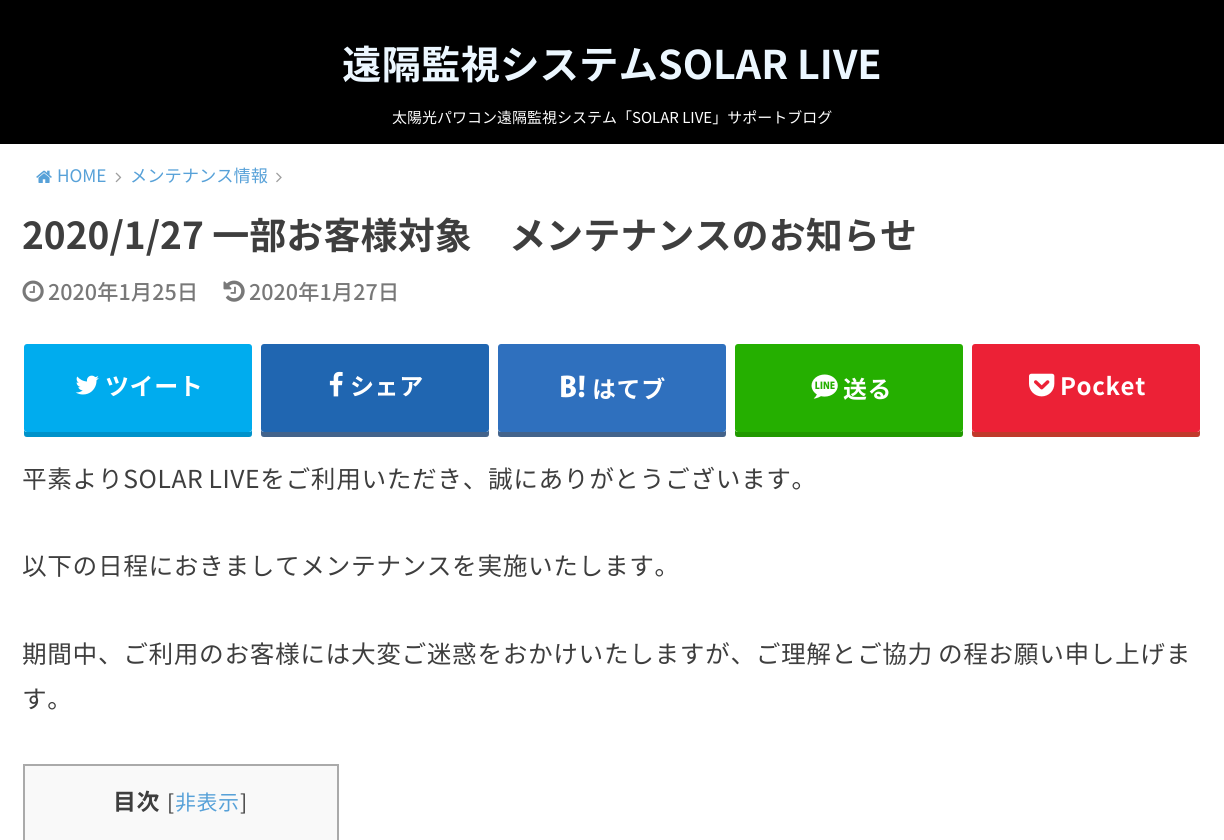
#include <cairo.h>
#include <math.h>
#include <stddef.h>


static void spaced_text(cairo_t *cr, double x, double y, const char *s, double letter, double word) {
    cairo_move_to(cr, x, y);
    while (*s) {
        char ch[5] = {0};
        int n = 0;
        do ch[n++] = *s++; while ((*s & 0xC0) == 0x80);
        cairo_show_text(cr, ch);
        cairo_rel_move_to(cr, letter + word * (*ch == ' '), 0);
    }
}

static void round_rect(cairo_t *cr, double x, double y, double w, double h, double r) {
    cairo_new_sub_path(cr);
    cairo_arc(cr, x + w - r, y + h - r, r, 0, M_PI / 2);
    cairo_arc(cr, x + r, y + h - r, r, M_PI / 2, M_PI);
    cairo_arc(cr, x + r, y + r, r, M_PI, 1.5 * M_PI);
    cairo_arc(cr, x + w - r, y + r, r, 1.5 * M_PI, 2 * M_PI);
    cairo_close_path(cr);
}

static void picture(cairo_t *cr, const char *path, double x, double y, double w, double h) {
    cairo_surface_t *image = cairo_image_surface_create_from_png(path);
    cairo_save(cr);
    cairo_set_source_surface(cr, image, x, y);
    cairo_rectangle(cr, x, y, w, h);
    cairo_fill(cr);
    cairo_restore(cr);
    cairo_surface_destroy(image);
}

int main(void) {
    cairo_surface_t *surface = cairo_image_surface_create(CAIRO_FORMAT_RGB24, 1224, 840);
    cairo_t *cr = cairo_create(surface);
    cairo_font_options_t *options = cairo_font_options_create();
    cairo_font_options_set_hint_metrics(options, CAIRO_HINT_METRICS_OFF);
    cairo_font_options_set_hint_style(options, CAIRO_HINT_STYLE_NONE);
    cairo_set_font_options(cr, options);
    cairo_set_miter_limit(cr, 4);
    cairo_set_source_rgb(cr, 1, 1, 1);
    cairo_paint(cr);
    cairo_set_source_rgb(cr, 0, 0, 0);
    cairo_rectangle(cr, 0, 0, 1224, 144);
    cairo_fill(cr);
    cairo_select_font_face(cr, "Noto Sans JP", CAIRO_FONT_SLANT_NORMAL, CAIRO_FONT_WEIGHT_BOLD);
    cairo_set_font_size(cr, 39.5);
    cairo_set_source_rgb(cr, 0.925, 0.965, 1);
    cairo_move_to(cr, 342, 79);
    cairo_show_text(cr, "遠隔監視システムSOLAR LIVE");
    cairo_select_font_face(cr, "Noto Sans JP", CAIRO_FONT_SLANT_NORMAL, CAIRO_FONT_WEIGHT_NORMAL);
    cairo_set_font_size(cr, 15);
    cairo_set_source_rgb(cr, 1, 1, 1);
    cairo_move_to(cr, 392, 123);
    cairo_show_text(cr, "太陽光パワコン遠隔監視システム「SOLAR LIVE」サポートブログ");
    picture(cr, "img1.png", 36, 170, 16, 13);
    cairo_set_font_size(cr, 17.25);
    cairo_set_source_rgb(cr, 0.341, 0.631, 0.847);
    cairo_move_to(cr, 57, 182);
    cairo_show_text(cr, "HOME");
    picture(cr, "img2.png", 115, 172, 7, 11);
    cairo_move_to(cr, 130, 182);
    cairo_show_text(cr, "メンテナンス情報");
    picture(cr, "img3.png", 276, 172, 6, 11);
    cairo_select_font_face(cr, "Noto Sans JP", CAIRO_FONT_SLANT_NORMAL, CAIRO_FONT_WEIGHT_BOLD);
    cairo_set_font_size(cr, 37.1);
    cairo_set_source_rgb(cr, 0.243, 0.243, 0.243);
    cairo_move_to(cr, 22, 249);
    cairo_show_text(cr, "2020/1/27 一部お客様対象　メンテナンスのお知らせ");
    picture(cr, "img4.png", 22, 280, 22, 22);
    cairo_select_font_face(cr, "Noto Sans JP Medium", CAIRO_FONT_SLANT_NORMAL, CAIRO_FONT_WEIGHT_NORMAL);
    cairo_set_font_size(cr, 21.5);
    cairo_set_source_rgb(cr, 0.471, 0.471, 0.471);
    cairo_move_to(cr, 48, 300);
    cairo_show_text(cr, "2020年1月25日");
    picture(cr, "img5.png", 223, 280, 22, 22);
    cairo_move_to(cr, 249, 300);
    cairo_show_text(cr, "2020年1月27日");
    cairo_set_source_rgb(cr, 0, 0.573, 0.792);
    cairo_new_path(cr);
    cairo_move_to(cr, 24, 429);
    cairo_line_to(cr, 24, 434);
    cairo_curve_to(cr, 24, 436, 25, 437, 27, 437);
    cairo_line_to(cr, 249, 437);
    cairo_curve_to(cr, 251, 437, 252, 436, 252, 434);
    cairo_line_to(cr, 252, 429);
    cairo_curve_to(cr, 252, 431, 251, 432, 249, 432);
    cairo_line_to(cr, 27, 432);
    cairo_curve_to(cr, 25, 432, 24, 431, 24, 429);
    cairo_close_path(cr);
    cairo_fill(cr);
    cairo_set_source_rgb(cr, 0, 0.675, 0.933);
    round_rect(cr, 24, 344, 228, 88, 3);
    cairo_fill(cr);
    picture(cr, "img6.png", 75, 375, 24, 20);
    cairo_select_font_face(cr, "Noto Sans JP", CAIRO_FONT_SLANT_NORMAL, CAIRO_FONT_WEIGHT_BOLD);
    cairo_set_font_size(cr, 24);
    cairo_set_source_rgb(cr, 1, 1, 1);
    spaced_text(cr, 105, 395, "ツイート", 0.6, 0);
    cairo_set_source_rgb(cr, 0.263, 0.388, 0.545);
    cairo_new_path(cr);
    cairo_move_to(cr, 261, 429);
    cairo_line_to(cr, 261, 434);
    cairo_curve_to(cr, 261, 436, 262, 437, 264, 437);
    cairo_line_to(cr, 486, 437);
    cairo_curve_to(cr, 488, 437, 489, 436, 489, 434);
    cairo_line_to(cr, 489, 429);
    cairo_curve_to(cr, 489, 431, 488, 432, 486, 432);
    cairo_line_to(cr, 264, 432);
    cairo_curve_to(cr, 262, 432, 261, 431, 261, 429);
    cairo_close_path(cr);
    cairo_fill(cr);
    cairo_set_source_rgb(cr, 0.125, 0.4, 0.694);
    round_rect(cr, 261, 344, 228, 88, 3);
    cairo_fill(cr);
    picture(cr, "img7.png", 329, 371, 14, 26);
    cairo_set_source_rgb(cr, 1, 1, 1);
    spaced_text(cr, 350, 395, "シェア", 0.6, 0);
    cairo_set_source_rgb(cr, 0.263, 0.388, 0.545);
    cairo_new_path(cr);
    cairo_move_to(cr, 498, 429);
    cairo_line_to(cr, 498, 434);
    cairo_curve_to(cr, 498, 436, 499, 437, 501, 437);
    cairo_line_to(cr, 723, 437);
    cairo_curve_to(cr, 725, 437, 726, 436, 726, 434);
    cairo_line_to(cr, 726, 429);
    cairo_curve_to(cr, 726, 431, 725, 432, 723, 432);
    cairo_line_to(cr, 501, 432);
    cairo_curve_to(cr, 499, 432, 498, 431, 498, 429);
    cairo_close_path(cr);
    cairo_fill(cr);
    cairo_set_source_rgb(cr, 0.184, 0.439, 0.745);
    round_rect(cr, 498, 344, 228, 88, 3);
    cairo_fill(cr);
    picture(cr, "img8.png", 561, 375, 24, 23);
    cairo_set_source_rgb(cr, 1, 1, 1);
    spaced_text(cr, 592, 398, "はてブ", 0.6, 0);
    cairo_set_source_rgb(cr, 0.129, 0.6, 0);
    cairo_new_path(cr);
    cairo_move_to(cr, 735, 429);
    cairo_line_to(cr, 735, 434);
    cairo_curve_to(cr, 735, 436, 736, 437, 738, 437);
    cairo_line_to(cr, 960, 437);
    cairo_curve_to(cr, 962, 437, 963, 436, 963, 434);
    cairo_line_to(cr, 963, 429);
    cairo_curve_to(cr, 963, 431, 962, 432, 960, 432);
    cairo_line_to(cr, 738, 432);
    cairo_curve_to(cr, 736, 432, 735, 431, 735, 429);
    cairo_close_path(cr);
    cairo_fill(cr);
    cairo_set_source_rgb(cr, 0.145, 0.686, 0);
    round_rect(cr, 735, 344, 228, 88, 3);
    cairo_fill(cr);
    picture(cr, "img9.png", 811, 374, 27, 25);
    cairo_set_source_rgb(cr, 1, 1, 1);
    spaced_text(cr, 843, 398, "送る", 0.6, 0);
    cairo_set_source_rgb(cr, 0.753, 0.224, 0.169);
    cairo_new_path(cr);
    cairo_move_to(cr, 972, 429);
    cairo_line_to(cr, 972, 434);
    cairo_curve_to(cr, 972, 436, 973, 437, 975, 437);
    cairo_line_to(cr, 1197, 437);
    cairo_curve_to(cr, 1199, 437, 1200, 436, 1200, 434);
    cairo_line_to(cr, 1200, 429);
    cairo_curve_to(cr, 1200, 431, 1199, 432, 1197, 432);
    cairo_line_to(cr, 975, 432);
    cairo_curve_to(cr, 973, 432, 972, 431, 972, 429);
    cairo_close_path(cr);
    cairo_fill(cr);
    cairo_set_source_rgb(cr, 0.925, 0.129, 0.212);
    round_rect(cr, 972, 344, 228, 88, 3);
    cairo_fill(cr);
    picture(cr, "img10.png", 1029, 373, 26, 24);
    cairo_set_source_rgb(cr, 1, 1, 1);
    spaced_text(cr, 1060, 395, "Pocket", 0.6, 0);
    cairo_select_font_face(cr, "Noto Sans JP", CAIRO_FONT_SLANT_NORMAL, CAIRO_FONT_WEIGHT_NORMAL);
    cairo_set_font_size(cr, 24.7);
    cairo_set_source_rgb(cr, 0.243, 0.243, 0.243);
    spaced_text(cr, 22, 488, "平素よりSOLAR LIVEをご利用いただき、誠にありがとうございます。", 0.6, -1);
    spaced_text(cr, 22, 575, "以下の日程におきましてメンテナンスを実施いたします。", 0.6, 0);
    spaced_text(cr, 22, 663, "期間中、ご利用のお客様には大変ご迷惑をおかけいたしますが、ご理解とご協力 の程お願い申し上げま", 0.6, -1);
    spaced_text(cr, 22, 708, "す。", 0.6, 0);
    cairo_set_source_rgb(cr, 0.976, 0.976, 0.976);
    cairo_rectangle(cr, 24, 765, 314, 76);
    cairo_fill_preserve(cr);
    cairo_set_source_rgb(cr, 0.667, 0.667, 0.667);
    cairo_stroke(cr);
    cairo_select_font_face(cr, "Noto Sans JP", CAIRO_FONT_SLANT_NORMAL, CAIRO_FONT_WEIGHT_BOLD);
    cairo_set_font_size(cr, 23);
    cairo_set_source_rgb(cr, 0.243, 0.243, 0.243);
    spaced_text(cr, 113, 810, "目次", 0.5, 0);
    cairo_select_font_face(cr, "Noto Sans JP", CAIRO_FONT_SLANT_NORMAL, CAIRO_FONT_WEIGHT_NORMAL);
    cairo_set_font_size(cr, 21);
    spaced_text(cr, 167, 810, "[", 0.5, 0);
    cairo_set_source_rgb(cr, 0.341, 0.631, 0.847);
    spaced_text(cr, 175, 810, "非表示", 0.5, 0);
    cairo_set_source_rgb(cr, 0.243, 0.243, 0.243);
    spaced_text(cr, 240, 810, "]", 0.5, 0);
    cairo_surface_write_to_png(surface, "page.png");
    cairo_font_options_destroy(options);
    cairo_destroy(cr);
    cairo_surface_destroy(surface);
    return 0;
}
